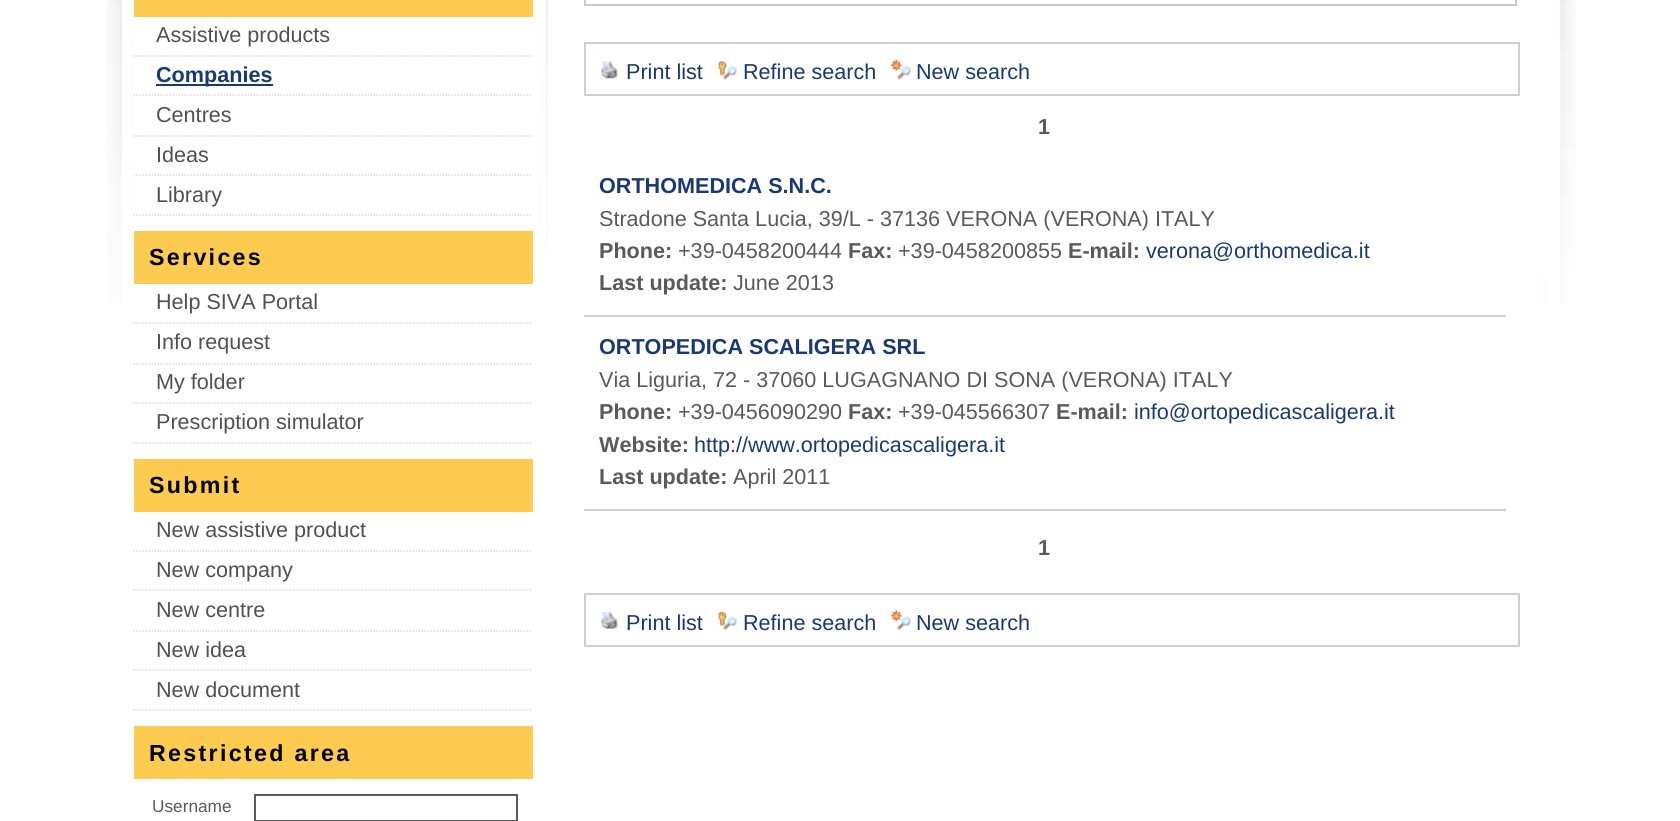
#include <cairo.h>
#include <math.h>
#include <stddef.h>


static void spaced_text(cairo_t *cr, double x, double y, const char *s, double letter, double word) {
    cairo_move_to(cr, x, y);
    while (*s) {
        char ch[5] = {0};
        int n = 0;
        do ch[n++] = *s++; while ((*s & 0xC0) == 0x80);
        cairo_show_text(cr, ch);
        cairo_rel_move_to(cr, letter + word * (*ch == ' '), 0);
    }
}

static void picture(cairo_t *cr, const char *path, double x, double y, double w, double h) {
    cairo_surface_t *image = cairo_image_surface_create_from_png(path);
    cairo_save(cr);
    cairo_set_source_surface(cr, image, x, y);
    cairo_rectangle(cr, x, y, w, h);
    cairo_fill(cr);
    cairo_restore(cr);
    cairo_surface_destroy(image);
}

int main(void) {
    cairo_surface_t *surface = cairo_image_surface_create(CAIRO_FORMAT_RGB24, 1680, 821);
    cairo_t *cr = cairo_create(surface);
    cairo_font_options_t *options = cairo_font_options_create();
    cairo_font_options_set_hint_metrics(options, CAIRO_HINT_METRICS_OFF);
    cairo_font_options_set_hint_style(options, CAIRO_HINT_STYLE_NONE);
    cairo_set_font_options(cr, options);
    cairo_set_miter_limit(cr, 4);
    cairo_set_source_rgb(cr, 1, 1, 1);
    cairo_paint(cr);
    picture(cr, "img1.png", 107, 0, 1469, 303);
    cairo_set_source_rgb(cr, 1, 1, 1);
    cairo_rectangle(cr, 122, 0, 8, 303);
    cairo_fill(cr);
    cairo_set_source_rgb(cr, 0.992, 0.796, 0.314);
    cairo_rectangle(cr, 134, 0, 399, 17);
    cairo_fill(cr);
    cairo_new_path(cr);
    cairo_move_to(cr, 133.5, 56);
    cairo_line_to(cr, 532.5, 56);
    cairo_set_source_rgb(cr, 0.851, 0.851, 0.859);
    cairo_set_line_width(cr, 1.5);
    cairo_set_dash(cr, (double[]){1.5, 1.5}, 2, 0);
    cairo_stroke(cr);
    cairo_select_font_face(cr, "Liberation Sans", CAIRO_FONT_SLANT_NORMAL, CAIRO_FONT_WEIGHT_NORMAL);
    cairo_set_font_size(cr, 21.6);
    cairo_set_source_rgb(cr, 0.329, 0.314, 0.31);
    cairo_move_to(cr, 156, 42);
    cairo_show_text(cr, "Assistive products");
    cairo_new_path(cr);
    cairo_move_to(cr, 133.5, 95);
    cairo_line_to(cr, 532.5, 95);
    cairo_set_source_rgb(cr, 0.851, 0.851, 0.859);
    cairo_stroke(cr);
    cairo_set_source_rgb(cr, 0.098, 0.224, 0.455);
    cairo_rectangle(cr, 156, 84, 117, 2);
    cairo_fill(cr);
    cairo_select_font_face(cr, "Liberation Sans", CAIRO_FONT_SLANT_NORMAL, CAIRO_FONT_WEIGHT_BOLD);
    cairo_move_to(cr, 156, 82);
    cairo_show_text(cr, "Companies");
    cairo_new_path(cr);
    cairo_move_to(cr, 133.5, 136);
    cairo_line_to(cr, 532.5, 136);
    cairo_set_source_rgb(cr, 0.851, 0.851, 0.859);
    cairo_stroke(cr);
    cairo_select_font_face(cr, "Liberation Sans", CAIRO_FONT_SLANT_NORMAL, CAIRO_FONT_WEIGHT_NORMAL);
    cairo_set_source_rgb(cr, 0.329, 0.314, 0.31);
    cairo_move_to(cr, 156, 122);
    cairo_show_text(cr, "Centres");
    cairo_new_path(cr);
    cairo_move_to(cr, 133.5, 175);
    cairo_line_to(cr, 532.5, 175);
    cairo_set_source_rgb(cr, 0.851, 0.851, 0.859);
    cairo_stroke(cr);
    cairo_set_source_rgb(cr, 0.329, 0.314, 0.31);
    cairo_move_to(cr, 156, 162);
    cairo_show_text(cr, "Ideas");
    cairo_new_path(cr);
    cairo_move_to(cr, 133.5, 215);
    cairo_line_to(cr, 532.5, 215);
    cairo_set_source_rgb(cr, 0.851, 0.851, 0.859);
    cairo_stroke(cr);
    cairo_set_source_rgb(cr, 0.329, 0.314, 0.31);
    cairo_move_to(cr, 156, 202);
    cairo_show_text(cr, "Library");
    cairo_set_source_rgb(cr, 0.992, 0.796, 0.314);
    cairo_rectangle(cr, 134, 231, 399, 53);
    cairo_fill(cr);
    cairo_select_font_face(cr, "Liberation Sans", CAIRO_FONT_SLANT_NORMAL, CAIRO_FONT_WEIGHT_BOLD);
    cairo_set_font_size(cr, 23.25);
    cairo_set_source_rgb(cr, 0, 0, 0);
    spaced_text(cr, 149, 265, "Services", 2.3, 0);
    cairo_new_path(cr);
    cairo_move_to(cr, 133.5, 323);
    cairo_line_to(cr, 532.5, 323);
    cairo_set_source_rgb(cr, 0.851, 0.851, 0.859);
    cairo_stroke(cr);
    cairo_select_font_face(cr, "Liberation Sans", CAIRO_FONT_SLANT_NORMAL, CAIRO_FONT_WEIGHT_NORMAL);
    cairo_set_font_size(cr, 21.6);
    cairo_set_source_rgb(cr, 0.329, 0.314, 0.31);
    cairo_move_to(cr, 156, 309);
    cairo_show_text(cr, "Help SIVA Portal");
    cairo_new_path(cr);
    cairo_move_to(cr, 133.5, 364);
    cairo_line_to(cr, 532.5, 364);
    cairo_set_source_rgb(cr, 0.851, 0.851, 0.859);
    cairo_stroke(cr);
    cairo_set_source_rgb(cr, 0.329, 0.314, 0.31);
    cairo_move_to(cr, 156, 349);
    cairo_show_text(cr, "Info request");
    cairo_new_path(cr);
    cairo_move_to(cr, 133.5, 403);
    cairo_line_to(cr, 532.5, 403);
    cairo_set_source_rgb(cr, 0.851, 0.851, 0.859);
    cairo_stroke(cr);
    cairo_set_source_rgb(cr, 0.329, 0.314, 0.31);
    cairo_move_to(cr, 156, 389);
    cairo_show_text(cr, "My folder");
    cairo_new_path(cr);
    cairo_move_to(cr, 133.5, 443);
    cairo_line_to(cr, 532.5, 443);
    cairo_set_source_rgb(cr, 0.851, 0.851, 0.859);
    cairo_stroke(cr);
    cairo_set_source_rgb(cr, 0.329, 0.314, 0.31);
    cairo_move_to(cr, 156, 429);
    cairo_show_text(cr, "Prescription simulator");
    cairo_set_source_rgb(cr, 0.992, 0.796, 0.314);
    cairo_rectangle(cr, 134, 459, 399, 53);
    cairo_fill(cr);
    cairo_select_font_face(cr, "Liberation Sans", CAIRO_FONT_SLANT_NORMAL, CAIRO_FONT_WEIGHT_BOLD);
    cairo_set_font_size(cr, 23.25);
    cairo_set_source_rgb(cr, 0, 0, 0);
    spaced_text(cr, 149, 493, "Submit", 2.3, 0);
    cairo_new_path(cr);
    cairo_move_to(cr, 133.5, 551);
    cairo_line_to(cr, 532.5, 551);
    cairo_set_source_rgb(cr, 0.851, 0.851, 0.859);
    cairo_stroke(cr);
    cairo_select_font_face(cr, "Liberation Sans", CAIRO_FONT_SLANT_NORMAL, CAIRO_FONT_WEIGHT_NORMAL);
    cairo_set_font_size(cr, 21.6);
    cairo_set_source_rgb(cr, 0.329, 0.314, 0.31);
    cairo_move_to(cr, 156, 537);
    cairo_show_text(cr, "New assistive product");
    cairo_new_path(cr);
    cairo_move_to(cr, 133.5, 590);
    cairo_line_to(cr, 532.5, 590);
    cairo_set_source_rgb(cr, 0.851, 0.851, 0.859);
    cairo_stroke(cr);
    cairo_set_source_rgb(cr, 0.329, 0.314, 0.31);
    cairo_move_to(cr, 156, 577);
    cairo_show_text(cr, "New company");
    cairo_new_path(cr);
    cairo_move_to(cr, 133.5, 631);
    cairo_line_to(cr, 532.5, 631);
    cairo_set_source_rgb(cr, 0.851, 0.851, 0.859);
    cairo_stroke(cr);
    cairo_set_source_rgb(cr, 0.329, 0.314, 0.31);
    cairo_move_to(cr, 156, 617);
    cairo_show_text(cr, "New centre");
    cairo_new_path(cr);
    cairo_move_to(cr, 133.5, 670);
    cairo_line_to(cr, 532.5, 670);
    cairo_set_source_rgb(cr, 0.851, 0.851, 0.859);
    cairo_stroke(cr);
    cairo_set_source_rgb(cr, 0.329, 0.314, 0.31);
    cairo_move_to(cr, 156, 657);
    cairo_show_text(cr, "New idea");
    cairo_new_path(cr);
    cairo_move_to(cr, 133.5, 710);
    cairo_line_to(cr, 532.5, 710);
    cairo_set_source_rgb(cr, 0.851, 0.851, 0.859);
    cairo_stroke(cr);
    cairo_set_source_rgb(cr, 0.329, 0.314, 0.31);
    cairo_move_to(cr, 156, 697);
    cairo_show_text(cr, "New document");
    cairo_set_source_rgb(cr, 0.992, 0.796, 0.314);
    cairo_rectangle(cr, 134, 726, 399, 53);
    cairo_fill(cr);
    cairo_select_font_face(cr, "Liberation Sans", CAIRO_FONT_SLANT_NORMAL, CAIRO_FONT_WEIGHT_BOLD);
    cairo_set_font_size(cr, 23.25);
    cairo_set_source_rgb(cr, 0, 0, 0);
    spaced_text(cr, 149, 761, "Restricted area", 2.3, 0);
    cairo_select_font_face(cr, "Liberation Sans", CAIRO_FONT_SLANT_NORMAL, CAIRO_FONT_WEIGHT_NORMAL);
    cairo_set_font_size(cr, 17.25);
    cairo_set_source_rgb(cr, 0.357, 0.353, 0.345);
    cairo_move_to(cr, 152, 812);
    cairo_show_text(cr, "Username");
    cairo_rectangle(cr, 255, 795, 262, 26);
    cairo_set_line_width(cr, 2);
    cairo_set_dash(cr, NULL, 0, 0);
    cairo_stroke(cr);
    cairo_rectangle(cr, 585, -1, 931, 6);
    cairo_set_source_rgb(cr, 0.784, 0.784, 0.784);
    cairo_stroke(cr);
    cairo_rectangle(cr, 585, 43, 934, 52);
    cairo_set_source_rgb(cr, 0.812, 0.812, 0.812);
    cairo_stroke(cr);
    picture(cr, "img2.png", 601, 61, 18, 18);
    cairo_set_font_size(cr, 21.6);
    cairo_set_source_rgb(cr, 0.098, 0.224, 0.455);
    cairo_move_to(cr, 626, 79);
    cairo_show_text(cr, "Print list");
    picture(cr, "img3.png", 718, 61, 19, 19);
    cairo_move_to(cr, 743, 79);
    cairo_show_text(cr, "Refine search");
    picture(cr, "img4.png", 891, 60, 20, 20);
    cairo_move_to(cr, 916, 79);
    cairo_show_text(cr, "New search");
    cairo_select_font_face(cr, "Liberation Sans", CAIRO_FONT_SLANT_NORMAL, CAIRO_FONT_WEIGHT_BOLD);
    cairo_set_source_rgb(cr, 0.357, 0.353, 0.345);
    cairo_move_to(cr, 1038, 134);
    cairo_show_text(cr, "1");
    cairo_set_source_rgb(cr, 0.812, 0.812, 0.812);
    cairo_rectangle(cr, 584, 315, 922, 2);
    cairo_fill(cr);
    cairo_set_source_rgb(cr, 0.098, 0.224, 0.455);
    cairo_move_to(cr, 599, 193);
    cairo_show_text(cr, "ORTHOMEDICA S.N.C.");
    cairo_select_font_face(cr, "Liberation Sans", CAIRO_FONT_SLANT_NORMAL, CAIRO_FONT_WEIGHT_NORMAL);
    cairo_set_source_rgb(cr, 0.357, 0.353, 0.345);
    cairo_move_to(cr, 599, 226);
    cairo_show_text(cr, "Stradone Santa Lucia, 39/L - 37136 VERONA (VERONA) ITALY");
    cairo_select_font_face(cr, "Liberation Sans", CAIRO_FONT_SLANT_NORMAL, CAIRO_FONT_WEIGHT_BOLD);
    cairo_move_to(cr, 599, 258);
    cairo_show_text(cr, "Phone:");
    cairo_select_font_face(cr, "Liberation Sans", CAIRO_FONT_SLANT_NORMAL, CAIRO_FONT_WEIGHT_NORMAL);
    cairo_move_to(cr, 678, 258);
    cairo_show_text(cr, "+39-0458200444");
    cairo_select_font_face(cr, "Liberation Sans", CAIRO_FONT_SLANT_NORMAL, CAIRO_FONT_WEIGHT_BOLD);
    cairo_move_to(cr, 848, 258);
    cairo_show_text(cr, "Fax:");
    cairo_select_font_face(cr, "Liberation Sans", CAIRO_FONT_SLANT_NORMAL, CAIRO_FONT_WEIGHT_NORMAL);
    cairo_move_to(cr, 898, 258);
    cairo_show_text(cr, "+39-0458200855");
    cairo_select_font_face(cr, "Liberation Sans", CAIRO_FONT_SLANT_NORMAL, CAIRO_FONT_WEIGHT_BOLD);
    cairo_move_to(cr, 1068, 258);
    cairo_show_text(cr, "E-mail:");
    cairo_select_font_face(cr, "Liberation Sans", CAIRO_FONT_SLANT_NORMAL, CAIRO_FONT_WEIGHT_NORMAL);
    cairo_set_source_rgb(cr, 0.098, 0.224, 0.455);
    cairo_move_to(cr, 1146, 258);
    cairo_show_text(cr, "verona@orthomedica.it");
    cairo_select_font_face(cr, "Liberation Sans", CAIRO_FONT_SLANT_NORMAL, CAIRO_FONT_WEIGHT_BOLD);
    cairo_set_source_rgb(cr, 0.357, 0.353, 0.345);
    cairo_move_to(cr, 599, 290);
    cairo_show_text(cr, "Last update:");
    cairo_select_font_face(cr, "Liberation Sans", CAIRO_FONT_SLANT_NORMAL, CAIRO_FONT_WEIGHT_NORMAL);
    cairo_move_to(cr, 733, 290);
    cairo_show_text(cr, "June 2013");
    cairo_set_source_rgb(cr, 0.812, 0.812, 0.812);
    cairo_rectangle(cr, 584, 509, 922, 2);
    cairo_fill(cr);
    cairo_select_font_face(cr, "Liberation Sans", CAIRO_FONT_SLANT_NORMAL, CAIRO_FONT_WEIGHT_BOLD);
    cairo_set_source_rgb(cr, 0.098, 0.224, 0.455);
    cairo_move_to(cr, 599, 354);
    cairo_show_text(cr, "ORTOPEDICA SCALIGERA SRL");
    cairo_select_font_face(cr, "Liberation Sans", CAIRO_FONT_SLANT_NORMAL, CAIRO_FONT_WEIGHT_NORMAL);
    cairo_set_source_rgb(cr, 0.357, 0.353, 0.345);
    cairo_move_to(cr, 599, 387);
    cairo_show_text(cr, "Via Liguria, 72 - 37060 LUGAGNANO DI SONA (VERONA) ITALY");
    cairo_select_font_face(cr, "Liberation Sans", CAIRO_FONT_SLANT_NORMAL, CAIRO_FONT_WEIGHT_BOLD);
    cairo_move_to(cr, 599, 419);
    cairo_show_text(cr, "Phone:");
    cairo_select_font_face(cr, "Liberation Sans", CAIRO_FONT_SLANT_NORMAL, CAIRO_FONT_WEIGHT_NORMAL);
    cairo_move_to(cr, 678, 419);
    cairo_show_text(cr, "+39-0456090290");
    cairo_select_font_face(cr, "Liberation Sans", CAIRO_FONT_SLANT_NORMAL, CAIRO_FONT_WEIGHT_BOLD);
    cairo_move_to(cr, 848, 419);
    cairo_show_text(cr, "Fax:");
    cairo_select_font_face(cr, "Liberation Sans", CAIRO_FONT_SLANT_NORMAL, CAIRO_FONT_WEIGHT_NORMAL);
    cairo_move_to(cr, 898, 419);
    cairo_show_text(cr, "+39-045566307");
    cairo_select_font_face(cr, "Liberation Sans", CAIRO_FONT_SLANT_NORMAL, CAIRO_FONT_WEIGHT_BOLD);
    cairo_move_to(cr, 1056, 419);
    cairo_show_text(cr, "E-mail:");
    cairo_select_font_face(cr, "Liberation Sans", CAIRO_FONT_SLANT_NORMAL, CAIRO_FONT_WEIGHT_NORMAL);
    cairo_set_source_rgb(cr, 0.098, 0.224, 0.455);
    cairo_move_to(cr, 1134, 419);
    cairo_show_text(cr, "info@ortopedicascaligera.it");
    cairo_select_font_face(cr, "Liberation Sans", CAIRO_FONT_SLANT_NORMAL, CAIRO_FONT_WEIGHT_BOLD);
    cairo_set_source_rgb(cr, 0.357, 0.353, 0.345);
    cairo_move_to(cr, 599, 452);
    cairo_show_text(cr, "Website:");
    cairo_select_font_face(cr, "Liberation Sans", CAIRO_FONT_SLANT_NORMAL, CAIRO_FONT_WEIGHT_NORMAL);
    cairo_set_source_rgb(cr, 0.098, 0.224, 0.455);
    cairo_move_to(cr, 694, 452);
    cairo_show_text(cr, "http://www.ortopedicascaligera.it");
    cairo_select_font_face(cr, "Liberation Sans", CAIRO_FONT_SLANT_NORMAL, CAIRO_FONT_WEIGHT_BOLD);
    cairo_set_source_rgb(cr, 0.357, 0.353, 0.345);
    cairo_move_to(cr, 599, 484);
    cairo_show_text(cr, "Last update:");
    cairo_select_font_face(cr, "Liberation Sans", CAIRO_FONT_SLANT_NORMAL, CAIRO_FONT_WEIGHT_NORMAL);
    cairo_move_to(cr, 733, 484);
    cairo_show_text(cr, "April 2011");
    cairo_select_font_face(cr, "Liberation Sans", CAIRO_FONT_SLANT_NORMAL, CAIRO_FONT_WEIGHT_BOLD);
    cairo_move_to(cr, 1038, 555);
    cairo_show_text(cr, "1");
    cairo_rectangle(cr, 585, 594, 934, 52);
    cairo_set_source_rgb(cr, 0.812, 0.812, 0.812);
    cairo_stroke(cr);
    picture(cr, "img5.png", 601, 611, 18, 18);
    cairo_select_font_face(cr, "Liberation Sans", CAIRO_FONT_SLANT_NORMAL, CAIRO_FONT_WEIGHT_NORMAL);
    cairo_set_source_rgb(cr, 0.098, 0.224, 0.455);
    cairo_move_to(cr, 626, 630);
    cairo_show_text(cr, "Print list");
    picture(cr, "img6.png", 718, 611, 19, 19);
    cairo_move_to(cr, 743, 630);
    cairo_show_text(cr, "Refine search");
    picture(cr, "img7.png", 891, 610, 20, 20);
    cairo_move_to(cr, 916, 630);
    cairo_show_text(cr, "New search");
    cairo_surface_write_to_png(surface, "page.png");
    cairo_font_options_destroy(options);
    cairo_destroy(cr);
    cairo_surface_destroy(surface);
    return 0;
}
